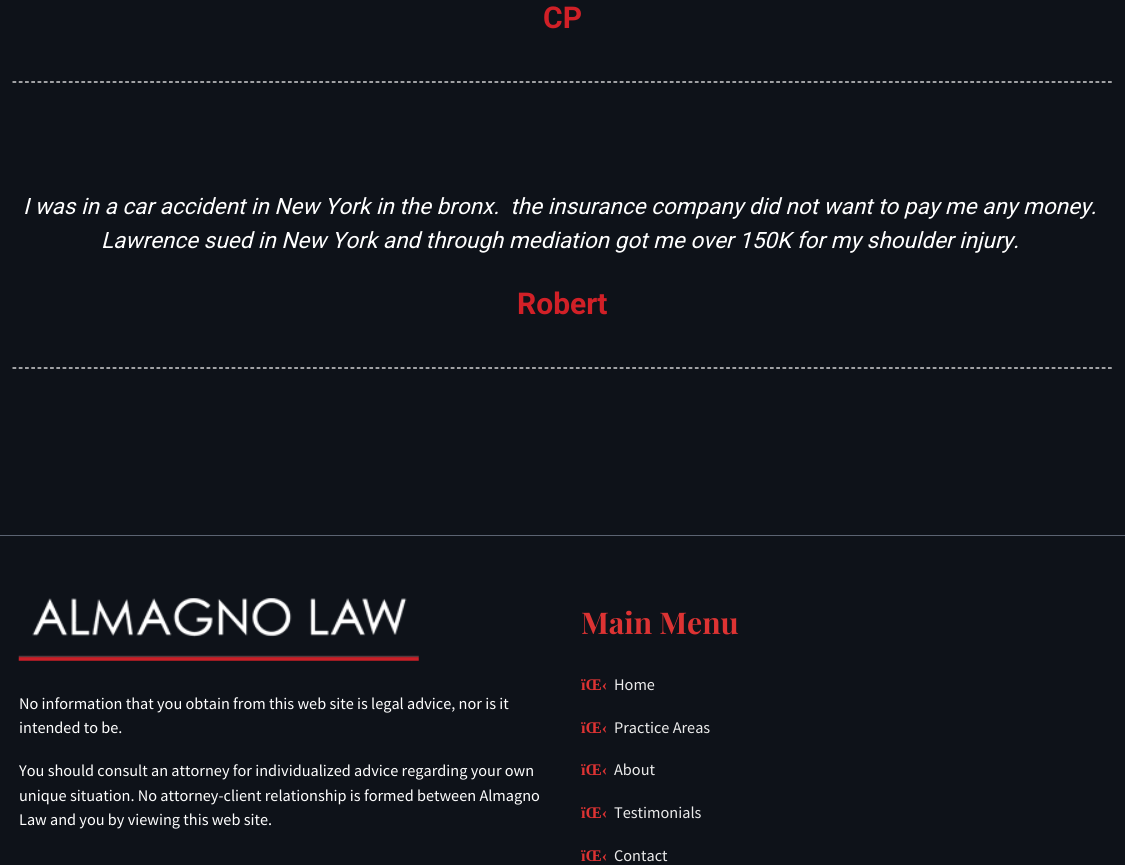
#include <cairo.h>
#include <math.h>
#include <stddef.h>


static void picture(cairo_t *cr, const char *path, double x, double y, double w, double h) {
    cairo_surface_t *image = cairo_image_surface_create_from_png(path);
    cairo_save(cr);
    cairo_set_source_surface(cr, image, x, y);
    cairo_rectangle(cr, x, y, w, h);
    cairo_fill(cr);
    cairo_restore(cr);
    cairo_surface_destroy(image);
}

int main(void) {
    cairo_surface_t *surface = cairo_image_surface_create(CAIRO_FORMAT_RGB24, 1125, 865);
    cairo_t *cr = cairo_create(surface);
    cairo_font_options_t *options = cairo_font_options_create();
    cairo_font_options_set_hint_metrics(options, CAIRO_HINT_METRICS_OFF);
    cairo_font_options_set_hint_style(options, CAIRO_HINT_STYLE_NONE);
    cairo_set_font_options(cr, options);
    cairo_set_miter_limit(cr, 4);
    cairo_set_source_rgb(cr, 0.055, 0.071, 0.098);
    cairo_paint(cr);
    cairo_select_font_face(cr, "Roboto", CAIRO_FONT_SLANT_NORMAL, CAIRO_FONT_WEIGHT_BOLD);
    cairo_set_font_size(cr, 30);
    cairo_set_source_rgb(cr, 0.82, 0.125, 0.153);
    cairo_move_to(cr, 543, 28);
    cairo_show_text(cr, "CP");
    cairo_new_path(cr);
    cairo_move_to(cr, 12.5, 82);
    cairo_line_to(cr, 1112.5, 82);
    cairo_set_source_rgb(cr, 1, 1, 1);
    cairo_set_line_width(cr, 1.2);
    cairo_set_dash(cr, (double[]){3.75, 2.51}, 2, 0);
    cairo_stroke(cr);
    cairo_select_font_face(cr, "Roboto", CAIRO_FONT_SLANT_ITALIC, CAIRO_FONT_WEIGHT_NORMAL);
    cairo_set_font_size(cr, 22.5);
    cairo_move_to(cr, 23, 214);
    cairo_show_text(cr, "I was in a car accident in New York in the bronx.  the insurance company did not want to pay me any money.");
    cairo_move_to(cr, 101, 248);
    cairo_show_text(cr, "Lawrence sued in New York and through mediation got me over 150K for my shoulder injury.");
    cairo_select_font_face(cr, "Roboto", CAIRO_FONT_SLANT_NORMAL, CAIRO_FONT_WEIGHT_BOLD);
    cairo_set_font_size(cr, 30);
    cairo_set_source_rgb(cr, 0.82, 0.125, 0.153);
    cairo_move_to(cr, 517, 314);
    cairo_show_text(cr, "Robert");
    cairo_new_path(cr);
    cairo_move_to(cr, 12.5, 368);
    cairo_line_to(cr, 1112.5, 368);
    cairo_set_source_rgb(cr, 1, 1, 1);
    cairo_stroke(cr);
    cairo_set_source_rgb(cr, 0.357, 0.388, 0.443);
    cairo_rectangle(cr, 0, 535, 1125, 1);
    cairo_fill(cr);
    picture(cr, "img1.png", 18, 598, 401, 63);
    cairo_select_font_face(cr, "Source Sans Pro", CAIRO_FONT_SLANT_NORMAL, CAIRO_FONT_WEIGHT_NORMAL);
    cairo_set_font_size(cr, 16.25);
    cairo_set_source_rgb(cr, 1, 1, 1);
    cairo_move_to(cr, 19, 709);
    cairo_show_text(cr, "No information that you obtain from this web site is legal advice, nor is it");
    cairo_move_to(cr, 19, 733);
    cairo_show_text(cr, "intended to be.");
    cairo_move_to(cr, 19, 776);
    cairo_show_text(cr, "You should consult an attorney for individualized advice regarding your own");
    cairo_move_to(cr, 19, 801);
    cairo_show_text(cr, "unique situation. No attorney-client relationship is formed between Almagno");
    cairo_move_to(cr, 19, 825);
    cairo_show_text(cr, "Law and you by viewing this web site.");
    cairo_select_font_face(cr, "Playfair Display", CAIRO_FONT_SLANT_NORMAL, CAIRO_FONT_WEIGHT_BOLD);
    cairo_set_font_size(cr, 30);
    cairo_set_source_rgb(cr, 0.867, 0.2, 0.2);
    cairo_move_to(cr, 581, 634);
    cairo_show_text(cr, "Main Menu");
    cairo_select_font_face(cr, "Liberation Serif", CAIRO_FONT_SLANT_NORMAL, CAIRO_FONT_WEIGHT_BOLD);
    cairo_set_font_size(cr, 16.25);
    cairo_move_to(cr, 581, 690);
    cairo_show_text(cr, "ïŒ‹");
    cairo_select_font_face(cr, "Source Sans Pro", CAIRO_FONT_SLANT_NORMAL, CAIRO_FONT_WEIGHT_NORMAL);
    cairo_set_source_rgb(cr, 0.918, 0.918, 0.918);
    cairo_move_to(cr, 614, 690);
    cairo_show_text(cr, "Home");
    cairo_select_font_face(cr, "Liberation Serif", CAIRO_FONT_SLANT_NORMAL, CAIRO_FONT_WEIGHT_BOLD);
    cairo_set_source_rgb(cr, 0.867, 0.2, 0.2);
    cairo_move_to(cr, 581, 733);
    cairo_show_text(cr, "ïŒ‹");
    cairo_select_font_face(cr, "Source Sans Pro", CAIRO_FONT_SLANT_NORMAL, CAIRO_FONT_WEIGHT_NORMAL);
    cairo_set_source_rgb(cr, 0.918, 0.918, 0.918);
    cairo_move_to(cr, 614, 733);
    cairo_show_text(cr, "Practice Areas");
    cairo_select_font_face(cr, "Liberation Serif", CAIRO_FONT_SLANT_NORMAL, CAIRO_FONT_WEIGHT_BOLD);
    cairo_set_source_rgb(cr, 0.867, 0.2, 0.2);
    cairo_move_to(cr, 581, 775);
    cairo_show_text(cr, "ïŒ‹");
    cairo_select_font_face(cr, "Source Sans Pro", CAIRO_FONT_SLANT_NORMAL, CAIRO_FONT_WEIGHT_NORMAL);
    cairo_set_source_rgb(cr, 0.918, 0.918, 0.918);
    cairo_move_to(cr, 614, 775);
    cairo_show_text(cr, "About");
    cairo_select_font_face(cr, "Liberation Serif", CAIRO_FONT_SLANT_NORMAL, CAIRO_FONT_WEIGHT_BOLD);
    cairo_set_source_rgb(cr, 0.867, 0.2, 0.2);
    cairo_move_to(cr, 581, 818);
    cairo_show_text(cr, "ïŒ‹");
    cairo_select_font_face(cr, "Source Sans Pro", CAIRO_FONT_SLANT_NORMAL, CAIRO_FONT_WEIGHT_NORMAL);
    cairo_set_source_rgb(cr, 0.918, 0.918, 0.918);
    cairo_move_to(cr, 614, 818);
    cairo_show_text(cr, "Testimonials");
    cairo_select_font_face(cr, "Liberation Serif", CAIRO_FONT_SLANT_NORMAL, CAIRO_FONT_WEIGHT_BOLD);
    cairo_set_source_rgb(cr, 0.867, 0.2, 0.2);
    cairo_move_to(cr, 581, 861);
    cairo_show_text(cr, "ïŒ‹");
    cairo_select_font_face(cr, "Source Sans Pro", CAIRO_FONT_SLANT_NORMAL, CAIRO_FONT_WEIGHT_NORMAL);
    cairo_set_source_rgb(cr, 0.918, 0.918, 0.918);
    cairo_move_to(cr, 614, 861);
    cairo_show_text(cr, "Contact");
    cairo_surface_write_to_png(surface, "page.png");
    cairo_font_options_destroy(options);
    cairo_destroy(cr);
    cairo_surface_destroy(surface);
    return 0;
}
